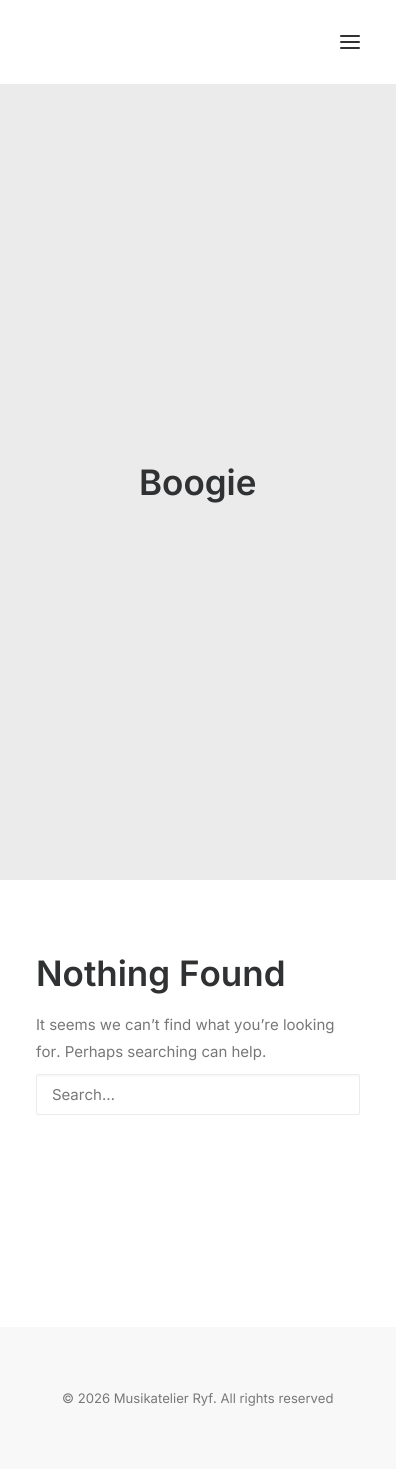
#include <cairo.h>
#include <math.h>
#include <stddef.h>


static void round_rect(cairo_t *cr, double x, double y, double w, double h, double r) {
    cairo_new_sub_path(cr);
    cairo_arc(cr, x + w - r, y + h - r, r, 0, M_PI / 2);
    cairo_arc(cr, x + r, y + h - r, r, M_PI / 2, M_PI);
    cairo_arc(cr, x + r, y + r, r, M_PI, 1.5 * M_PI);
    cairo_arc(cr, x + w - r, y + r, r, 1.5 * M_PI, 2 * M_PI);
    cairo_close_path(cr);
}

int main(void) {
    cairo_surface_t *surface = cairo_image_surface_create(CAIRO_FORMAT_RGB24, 396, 1469);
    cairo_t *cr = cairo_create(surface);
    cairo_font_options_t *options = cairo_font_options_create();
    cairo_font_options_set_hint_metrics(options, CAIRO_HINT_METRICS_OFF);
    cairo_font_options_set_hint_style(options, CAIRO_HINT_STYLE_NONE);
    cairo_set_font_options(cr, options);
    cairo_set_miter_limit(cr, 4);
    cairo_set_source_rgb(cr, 0.969, 0.969, 0.969);
    cairo_paint(cr);
    cairo_set_source_rgb(cr, 1, 1, 1);
    cairo_rectangle(cr, 0, 0, 396, 84);
    cairo_fill(cr);
    cairo_set_source_rgb(cr, 0.188, 0.192, 0.2);
    round_rect(cr, 340, 41, 20, 2, 1);
    cairo_fill(cr);
    round_rect(cr, 340, 35, 20, 2, 1);
    cairo_fill(cr);
    round_rect(cr, 340, 47, 20, 2, 1);
    cairo_fill(cr);
    cairo_set_source_rgb(cr, 0.918, 0.918, 0.918);
    cairo_rectangle(cr, 0, 84, 396, 796);
    cairo_fill(cr);
    cairo_select_font_face(cr, "Inter SemiBold", CAIRO_FONT_SLANT_NORMAL, CAIRO_FONT_WEIGHT_NORMAL);
    cairo_set_font_size(cr, 35);
    cairo_set_source_rgb(cr, 0.188, 0.192, 0.2);
    cairo_move_to(cr, 139, 495);
    cairo_show_text(cr, "Boogie");
    cairo_set_source_rgb(cr, 1, 1, 1);
    cairo_rectangle(cr, 0, 880, 396, 447);
    cairo_fill(cr);
    cairo_set_source_rgb(cr, 0.188, 0.192, 0.2);
    cairo_move_to(cr, 36, 986);
    cairo_show_text(cr, "Nothing Found");
    cairo_select_font_face(cr, "Inter", CAIRO_FONT_SLANT_NORMAL, CAIRO_FONT_WEIGHT_NORMAL);
    cairo_set_font_size(cr, 15);
    cairo_set_source_rgb(cr, 0.467, 0.467, 0.467);
    cairo_move_to(cr, 36, 1030);
    cairo_show_text(cr, "It seems we can’t find what you’re looking");
    cairo_move_to(cr, 36, 1057);
    cairo_show_text(cr, "for. Perhaps searching can help.");
    cairo_set_source_rgb(cr, 0.976, 0.976, 0.976);
    cairo_new_path(cr);
    cairo_move_to(cr, 38, 1077);
    cairo_line_to(cr, 358, 1077);
    cairo_curve_to(cr, 359, 1077, 359, 1077, 359, 1078);
    cairo_line_to(cr, 359, 1075);
    cairo_line_to(cr, 38, 1075);
    cairo_curve_to(cr, 37, 1075, 37, 1077, 37, 1078);
    cairo_curve_to(cr, 37, 1077, 37, 1077, 38, 1077);
    cairo_close_path(cr);
    cairo_fill(cr);
    round_rect(cr, 36.5, 1074.5, 323, 40, 1.5);
    cairo_set_source_rgb(cr, 0.918, 0.918, 0.918);
    cairo_set_line_width(cr, 1);
    cairo_stroke(cr);
    cairo_set_source_rgb(cr, 0.467, 0.467, 0.467);
    cairo_move_to(cr, 52, 1100);
    cairo_show_text(cr, "Search…");
    cairo_set_font_size(cr, 13.1);
    cairo_move_to(cr, 62, 1403);
    cairo_show_text(cr, "© 2026 Musikatelier Ryf. All rights reserved");
    cairo_surface_write_to_png(surface, "page.png");
    cairo_font_options_destroy(options);
    cairo_destroy(cr);
    cairo_surface_destroy(surface);
    return 0;
}
